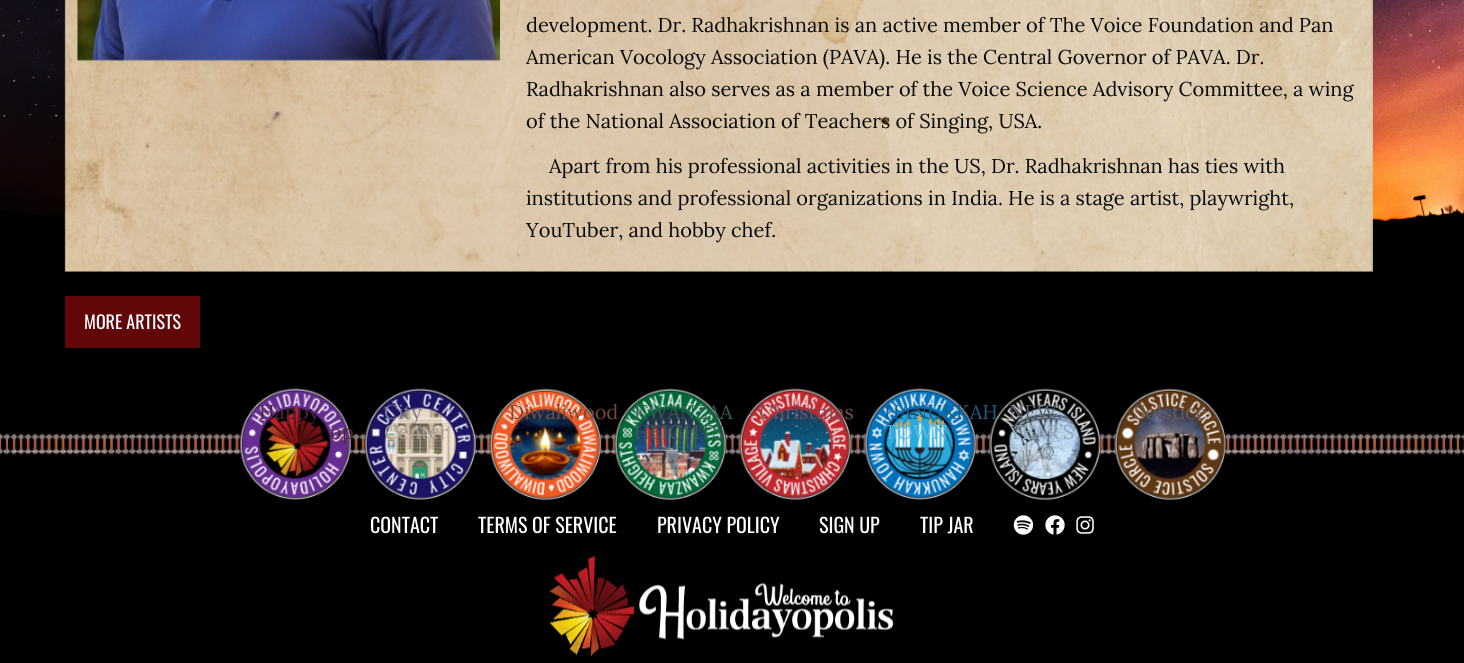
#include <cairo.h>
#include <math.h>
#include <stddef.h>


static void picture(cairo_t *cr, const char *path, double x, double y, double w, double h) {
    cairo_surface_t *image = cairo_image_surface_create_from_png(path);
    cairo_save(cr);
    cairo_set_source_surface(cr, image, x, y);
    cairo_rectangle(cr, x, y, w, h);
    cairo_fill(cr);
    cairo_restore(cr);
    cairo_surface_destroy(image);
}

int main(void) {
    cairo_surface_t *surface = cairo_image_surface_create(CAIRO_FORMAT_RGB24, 1464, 663);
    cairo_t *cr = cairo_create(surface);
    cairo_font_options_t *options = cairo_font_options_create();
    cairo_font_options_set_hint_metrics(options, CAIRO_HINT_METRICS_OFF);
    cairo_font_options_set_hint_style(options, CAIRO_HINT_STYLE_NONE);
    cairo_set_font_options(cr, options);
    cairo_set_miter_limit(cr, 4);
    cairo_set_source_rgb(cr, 0, 0, 0);
    cairo_paint(cr);
    picture(cr, "img1.png", 0, 0, 1464, 239);
    picture(cr, "img2.png", 64, 0, 1309, 272);
    picture(cr, "img3.png", 77, 0, 423, 61);
    cairo_select_font_face(cr, "Lora", CAIRO_FONT_SLANT_NORMAL, CAIRO_FONT_WEIGHT_NORMAL);
    cairo_set_font_size(cr, 20);
    cairo_set_source_rgb(cr, 0.039, 0.039, 0.039);
    cairo_move_to(cr, 526, 32);
    cairo_show_text(cr, "development. Dr. Radhakrishnan is an active member of The Voice Foundation and Pan");
    cairo_move_to(cr, 526, 64);
    cairo_show_text(cr, "American Vocology Association (PAVA). He is the Central Governor of PAVA. Dr.");
    cairo_move_to(cr, 526, 96);
    cairo_show_text(cr, "Radhakrishnan also serves as a member of the Voice Science Advisory Committee, a wing");
    cairo_move_to(cr, 526, 128);
    cairo_show_text(cr, "of the National Association of Teachers of Singing, USA.");
    cairo_move_to(cr, 549, 173);
    cairo_show_text(cr, "Apart from his professional activities in the US, Dr. Radhakrishnan has ties with");
    cairo_move_to(cr, 526, 205);
    cairo_show_text(cr, "institutions and professional organizations in India. He is a stage artist, playwright,");
    cairo_move_to(cr, 526, 237);
    cairo_show_text(cr, "YouTuber, and hobby chef.");
    cairo_set_source_rgb(cr, 0.384, 0.031, 0.039);
    cairo_rectangle(cr, 65, 296, 135, 52);
    cairo_fill(cr);
    cairo_select_font_face(cr, "Oswald", CAIRO_FONT_SLANT_NORMAL, CAIRO_FONT_WEIGHT_NORMAL);
    cairo_set_font_size(cr, 18);
    cairo_set_source_rgb(cr, 1, 1, 1);
    cairo_move_to(cr, 84, 329);
    cairo_show_text(cr, "MORE ARTISTS");
    picture(cr, "img4.png", 0, 433, 1464, 22);
    picture(cr, "img5.png", 239, 388, 113, 112);
    cairo_select_font_face(cr, "Lora", CAIRO_FONT_SLANT_NORMAL, CAIRO_FONT_WEIGHT_NORMAL);
    cairo_set_font_size(cr, 20);
    cairo_set_source_rgb(cr, 0.29, 0.145, 0.243);
    cairo_move_to(cr, 259, 419);
    cairo_show_text(cr, "Happy");
    cairo_set_source_rgb(cr, 0.333, 0.141, 0.192);
    cairo_move_to(cr, 330, 439);
    cairo_show_text(cr, "op");
    picture(cr, "img6.png", 364, 388, 113, 112);
    cairo_set_source_rgb(cr, 0.494, 0.459, 0.573);
    cairo_move_to(cr, 384, 419);
    cairo_show_text(cr, "City");
    cairo_set_source_rgb(cr, 0.655, 0.608, 0.569);
    cairo_move_to(cr, 384, 439);
    cairo_show_text(cr, "Center");
    picture(cr, "img7.png", 489, 388, 113, 112);
    cairo_set_source_rgb(cr, 0.467, 0.286, 0.239);
    cairo_move_to(cr, 509, 419);
    cairo_show_text(cr, "Diwaliwood");
    picture(cr, "img8.png", 614, 388, 113, 112);
    cairo_set_source_rgb(cr, 0.192, 0.373, 0.31);
    cairo_move_to(cr, 634, 419);
    cairo_show_text(cr, "KWANZAA");
    cairo_set_source_rgb(cr, 0.231, 0.353, 0.341);
    cairo_move_to(cr, 634, 439);
    cairo_show_text(cr, "HEIGHTS");
    picture(cr, "img9.png", 739, 388, 113, 112);
    cairo_set_source_rgb(cr, 0.471, 0.298, 0.345);
    cairo_move_to(cr, 759, 419);
    cairo_show_text(cr, "Christmas");
    picture(cr, "img10.png", 864, 388, 113, 112);
    cairo_set_source_rgb(cr, 0.125, 0.361, 0.502);
    cairo_move_to(cr, 884, 419);
    cairo_show_text(cr, "HANUKKAH");
    cairo_set_source_rgb(cr, 0.396, 0.725, 0.859);
    cairo_move_to(cr, 884, 439);
    cairo_show_text(cr, "TOWN");
    picture(cr, "img11.png", 989, 388, 113, 112);
    cairo_set_source_rgb(cr, 0.353, 0.384, 0.416);
    cairo_move_to(cr, 1009, 419);
    cairo_show_text(cr, "NEW");
    cairo_set_source_rgb(cr, 0.573, 0.651, 0.725);
    cairo_move_to(cr, 1009, 439);
    cairo_show_text(cr, "YEAR’S");
    picture(cr, "img12.png", 1114, 388, 113, 112);
    cairo_set_source_rgb(cr, 0.408, 0.357, 0.349);
    cairo_move_to(cr, 1134, 419);
    cairo_show_text(cr, "Solstice");
    cairo_select_font_face(cr, "Oswald", CAIRO_FONT_SLANT_NORMAL, CAIRO_FONT_WEIGHT_NORMAL);
    cairo_set_source_rgb(cr, 1, 1, 1);
    cairo_move_to(cr, 370, 533);
    cairo_show_text(cr, "CONTACT");
    cairo_move_to(cr, 478, 533);
    cairo_show_text(cr, "TERMS OF SERVICE");
    cairo_move_to(cr, 657, 533);
    cairo_show_text(cr, "PRIVACY POLICY");
    cairo_move_to(cr, 819, 533);
    cairo_show_text(cr, "SIGN UP");
    cairo_move_to(cr, 920, 533);
    cairo_show_text(cr, "TIP JAR");
    picture(cr, "img13.png", 1013, 515, 21, 20);
    picture(cr, "img14.png", 1045, 515, 20, 20);
    picture(cr, "img15.png", 1076, 516, 18, 18);
    picture(cr, "img16.png", 549, 555, 345, 102);
    cairo_surface_write_to_png(surface, "page.png");
    cairo_font_options_destroy(options);
    cairo_destroy(cr);
    cairo_surface_destroy(surface);
    return 0;
}
